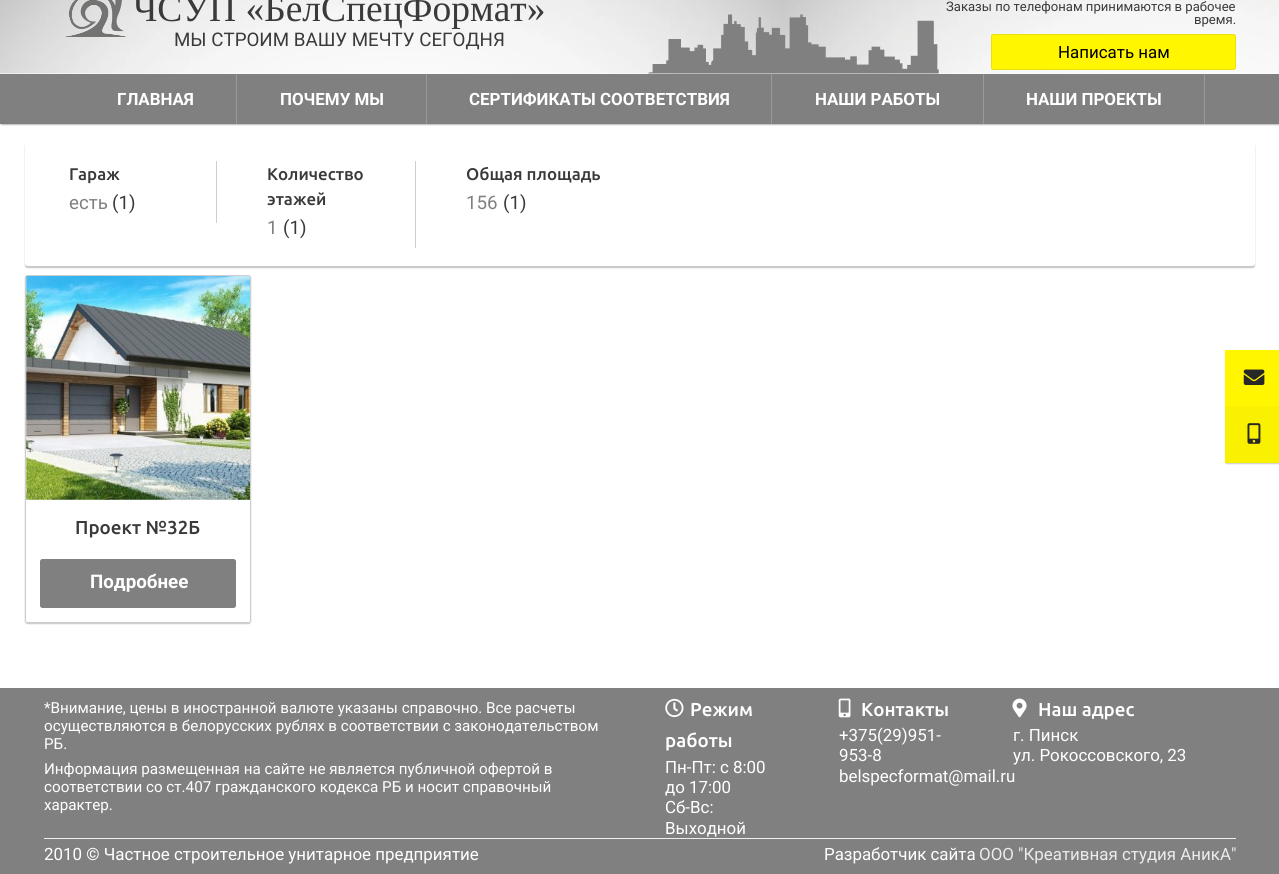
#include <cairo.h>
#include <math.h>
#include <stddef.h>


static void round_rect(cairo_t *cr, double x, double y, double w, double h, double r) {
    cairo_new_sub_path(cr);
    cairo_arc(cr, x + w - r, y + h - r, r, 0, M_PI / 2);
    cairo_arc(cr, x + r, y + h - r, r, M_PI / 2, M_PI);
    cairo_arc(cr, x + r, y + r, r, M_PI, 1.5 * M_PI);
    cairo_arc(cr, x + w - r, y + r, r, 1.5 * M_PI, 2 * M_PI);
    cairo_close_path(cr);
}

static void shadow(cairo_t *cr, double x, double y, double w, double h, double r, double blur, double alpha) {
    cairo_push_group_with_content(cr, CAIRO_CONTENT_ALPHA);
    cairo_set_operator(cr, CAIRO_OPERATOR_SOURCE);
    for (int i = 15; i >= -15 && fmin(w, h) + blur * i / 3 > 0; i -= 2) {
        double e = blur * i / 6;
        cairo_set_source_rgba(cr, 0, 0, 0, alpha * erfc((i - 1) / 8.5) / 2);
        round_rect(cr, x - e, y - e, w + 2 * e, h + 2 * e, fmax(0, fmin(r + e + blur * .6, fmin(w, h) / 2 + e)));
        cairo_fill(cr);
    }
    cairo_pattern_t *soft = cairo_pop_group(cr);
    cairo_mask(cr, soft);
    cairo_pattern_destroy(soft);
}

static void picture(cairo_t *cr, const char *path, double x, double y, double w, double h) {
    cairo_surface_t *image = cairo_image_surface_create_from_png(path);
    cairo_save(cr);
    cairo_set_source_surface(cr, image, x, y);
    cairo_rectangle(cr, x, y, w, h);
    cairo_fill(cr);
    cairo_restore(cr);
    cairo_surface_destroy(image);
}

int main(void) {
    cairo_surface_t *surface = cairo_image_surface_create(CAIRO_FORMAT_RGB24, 1279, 874);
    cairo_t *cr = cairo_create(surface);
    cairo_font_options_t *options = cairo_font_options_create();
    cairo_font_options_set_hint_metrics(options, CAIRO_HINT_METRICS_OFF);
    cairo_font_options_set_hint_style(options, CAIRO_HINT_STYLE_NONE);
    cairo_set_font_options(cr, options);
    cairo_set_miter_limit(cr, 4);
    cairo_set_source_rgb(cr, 1, 1, 1);
    cairo_paint(cr);
    picture(cr, "img1.png", 0, 0, 1279, 74);
    picture(cr, "img2.png", 65, 0, 62, 37);
    cairo_select_font_face(cr, "Liberation Serif", CAIRO_FONT_SLANT_NORMAL, CAIRO_FONT_WEIGHT_NORMAL);
    cairo_set_font_size(cr, 37.5);
    cairo_set_source_rgb(cr, 0.227, 0.227, 0.227);
    cairo_move_to(cr, 133, 21);
    cairo_show_text(cr, "ЧСУП «БелСпецФормат»");
    cairo_select_font_face(cr, "Roboto", CAIRO_FONT_SLANT_NORMAL, CAIRO_FONT_WEIGHT_NORMAL);
    cairo_set_font_size(cr, 18.75);
    cairo_move_to(cr, 174, 46);
    cairo_show_text(cr, "МЫ СТРОИМ ВАШУ МЕЧТУ СЕГОДНЯ");
    picture(cr, "img3.png", 648, 14, 291, 60);
    cairo_set_font_size(cr, 13.1);
    cairo_move_to(cr, 946, 11);
    cairo_show_text(cr, "Заказы по телефонам принимаются в рабочее");
    cairo_move_to(cr, 1194, 24);
    cairo_show_text(cr, "время.");
    cairo_set_source_rgb(cr, 1, 0.961, 0);
    round_rect(cr, 991.5, 34.5, 244, 35, 2);
    cairo_fill_preserve(cr);
    cairo_set_source_rgb(cr, 0.914, 0.878, 0.063);
    cairo_set_line_width(cr, 1);
    cairo_stroke(cr);
    cairo_set_font_size(cr, 16.9);
    cairo_set_source_rgb(cr, 0, 0, 0);
    cairo_move_to(cr, 1058, 58);
    cairo_show_text(cr, "Написать нам");
    cairo_set_source_rgb(cr, 0, 0, 0);
    shadow(cr, 1, 75, 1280, 50, 0, 0.5, 0.26);
    cairo_set_source_rgb(cr, 0.502, 0.502, 0.502);
    cairo_rectangle(cr, 0, 74, 1279, 50);
    cairo_fill(cr);
    cairo_set_source_rgb(cr, 0.6, 0.6, 0.6);
    cairo_rectangle(cr, 236, 74, 1, 50);
    cairo_fill(cr);
    cairo_select_font_face(cr, "Roboto", CAIRO_FONT_SLANT_NORMAL, CAIRO_FONT_WEIGHT_BOLD);
    cairo_set_source_rgb(cr, 1, 1, 1);
    cairo_move_to(cr, 117, 105);
    cairo_show_text(cr, "ГЛАВНАЯ");
    cairo_set_source_rgb(cr, 0.6, 0.6, 0.6);
    cairo_rectangle(cr, 426, 74, 1, 50);
    cairo_fill(cr);
    cairo_set_source_rgb(cr, 1, 1, 1);
    cairo_move_to(cr, 280, 105);
    cairo_show_text(cr, "ПОЧЕМУ МЫ");
    cairo_set_source_rgb(cr, 0.6, 0.6, 0.6);
    cairo_rectangle(cr, 771, 74, 1, 50);
    cairo_fill(cr);
    cairo_set_source_rgb(cr, 1, 1, 1);
    cairo_move_to(cr, 469, 105);
    cairo_show_text(cr, "СЕРТИФИКАТЫ СООТВЕТСТВИЯ");
    cairo_set_source_rgb(cr, 0.6, 0.6, 0.6);
    cairo_rectangle(cr, 983, 74, 1, 50);
    cairo_fill(cr);
    cairo_set_source_rgb(cr, 1, 1, 1);
    cairo_move_to(cr, 815, 105);
    cairo_show_text(cr, "НАШИ РАБОТЫ");
    cairo_set_source_rgb(cr, 0.6, 0.6, 0.6);
    cairo_rectangle(cr, 1204, 74, 1, 50);
    cairo_fill(cr);
    cairo_set_source_rgb(cr, 1, 1, 1);
    cairo_move_to(cr, 1026, 105);
    cairo_show_text(cr, "НАШИ ПРОЕКТЫ");
    cairo_set_source_rgb(cr, 0, 0, 0);
    shadow(cr, 25, 144, 1230, 124, 2.5, 0.5, 0.22);
    cairo_set_source_rgb(cr, 1, 1, 1);
    round_rect(cr, 25, 143, 1230, 123, 2.5);
    cairo_fill(cr);
    cairo_set_source_rgb(cr, 0.804, 0.804, 0.804);
    cairo_rectangle(cr, 216, 161, 1, 62);
    cairo_fill(cr);
    cairo_select_font_face(cr, "Ubuntu Medium", CAIRO_FONT_SLANT_NORMAL, CAIRO_FONT_WEIGHT_NORMAL);
    cairo_set_source_rgb(cr, 0.227, 0.227, 0.227);
    cairo_move_to(cr, 69, 180);
    cairo_show_text(cr, "Гараж");
    cairo_select_font_face(cr, "Roboto", CAIRO_FONT_SLANT_NORMAL, CAIRO_FONT_WEIGHT_NORMAL);
    cairo_set_font_size(cr, 18.75);
    cairo_set_source_rgb(cr, 0.502, 0.502, 0.502);
    cairo_move_to(cr, 69, 209);
    cairo_show_text(cr, "есть");
    cairo_set_source_rgb(cr, 0.227, 0.227, 0.227);
    cairo_move_to(cr, 112, 209);
    cairo_show_text(cr, "(1)");
    cairo_set_source_rgb(cr, 0.804, 0.804, 0.804);
    cairo_rectangle(cr, 415, 161, 1, 87);
    cairo_fill(cr);
    cairo_select_font_face(cr, "Ubuntu Medium", CAIRO_FONT_SLANT_NORMAL, CAIRO_FONT_WEIGHT_NORMAL);
    cairo_set_font_size(cr, 16.9);
    cairo_set_source_rgb(cr, 0.227, 0.227, 0.227);
    cairo_move_to(cr, 267, 180);
    cairo_show_text(cr, "Количество");
    cairo_move_to(cr, 267, 205);
    cairo_show_text(cr, "этажей");
    cairo_select_font_face(cr, "Roboto", CAIRO_FONT_SLANT_NORMAL, CAIRO_FONT_WEIGHT_NORMAL);
    cairo_set_font_size(cr, 18.75);
    cairo_set_source_rgb(cr, 0.502, 0.502, 0.502);
    cairo_move_to(cr, 267, 234);
    cairo_show_text(cr, "1");
    cairo_set_source_rgb(cr, 0.227, 0.227, 0.227);
    cairo_move_to(cr, 283, 234);
    cairo_show_text(cr, "(1)");
    cairo_select_font_face(cr, "Ubuntu Medium", CAIRO_FONT_SLANT_NORMAL, CAIRO_FONT_WEIGHT_NORMAL);
    cairo_set_font_size(cr, 16.9);
    cairo_move_to(cr, 466, 180);
    cairo_show_text(cr, "Общая площадь");
    cairo_select_font_face(cr, "Roboto", CAIRO_FONT_SLANT_NORMAL, CAIRO_FONT_WEIGHT_NORMAL);
    cairo_set_font_size(cr, 18.75);
    cairo_set_source_rgb(cr, 0.502, 0.502, 0.502);
    cairo_move_to(cr, 466, 209);
    cairo_show_text(cr, "156");
    cairo_set_source_rgb(cr, 0.227, 0.227, 0.227);
    cairo_move_to(cr, 503, 209);
    cairo_show_text(cr, "(1)");
    cairo_save(cr);
    cairo_set_fill_rule(cr, CAIRO_FILL_RULE_EVEN_ODD);
    cairo_new_path(cr);
    cairo_move_to(cr, 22, 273);
    cairo_line_to(cr, 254, 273);
    cairo_line_to(cr, 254, 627);
    cairo_line_to(cr, 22, 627);
    cairo_close_path(cr);
    cairo_move_to(cr, 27.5, 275);
    cairo_line_to(cr, 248.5, 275);
    cairo_curve_to(cr, 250, 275, 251, 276, 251, 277.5);
    cairo_line_to(cr, 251, 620.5);
    cairo_curve_to(cr, 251, 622, 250, 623, 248.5, 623);
    cairo_line_to(cr, 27.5, 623);
    cairo_curve_to(cr, 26, 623, 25, 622, 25, 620.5);
    cairo_line_to(cr, 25, 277.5);
    cairo_curve_to(cr, 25, 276, 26, 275, 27.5, 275);
    cairo_close_path(cr);
    cairo_clip(cr);
    cairo_set_source_rgb(cr, 0, 0, 0);
    shadow(cr, 25, 276, 226, 348, 2.5, 0.5, 0.22);
    cairo_restore(cr);
    round_rect(cr, 25.5, 275.5, 225, 347, 2);
    cairo_set_source_rgb(cr, 0.804, 0.804, 0.804);
    cairo_stroke(cr);
    picture(cr, "img4.png", 26, 276, 224, 224);
    cairo_select_font_face(cr, "Ubuntu Medium", CAIRO_FONT_SLANT_NORMAL, CAIRO_FONT_WEIGHT_NORMAL);
    cairo_set_source_rgb(cr, 0.227, 0.227, 0.227);
    cairo_move_to(cr, 75, 534);
    cairo_show_text(cr, "Проект №32Б");
    cairo_set_source_rgb(cr, 0.502, 0.502, 0.502);
    round_rect(cr, 40, 559, 196, 49, 2.5);
    cairo_fill(cr);
    cairo_select_font_face(cr, "Roboto", CAIRO_FONT_SLANT_NORMAL, CAIRO_FONT_WEIGHT_BOLD);
    cairo_set_source_rgb(cr, 1, 1, 1);
    cairo_move_to(cr, 90, 588);
    cairo_show_text(cr, "Подробнее");
    cairo_set_source_rgb(cr, 0.502, 0.502, 0.502);
    cairo_rectangle(cr, 0, 688, 1279, 186);
    cairo_fill(cr);
    cairo_set_source_rgb(cr, 0.933, 0.933, 0.933);
    cairo_rectangle(cr, 44, 838, 1192, 1);
    cairo_fill(cr);
    cairo_select_font_face(cr, "Roboto", CAIRO_FONT_SLANT_NORMAL, CAIRO_FONT_WEIGHT_NORMAL);
    cairo_set_font_size(cr, 15.2);
    cairo_set_source_rgb(cr, 1, 1, 1);
    cairo_move_to(cr, 44, 713);
    cairo_show_text(cr, "*Внимание, цены в иностранной валюте указаны справочно. Все расчеты");
    cairo_move_to(cr, 44, 731);
    cairo_show_text(cr, "осуществляются в белорусских рублях в соответствии с законодательством");
    cairo_move_to(cr, 44, 749);
    cairo_show_text(cr, "РБ.");
    cairo_move_to(cr, 44, 774);
    cairo_show_text(cr, "Информация размещенная на сайте не является публичной офертой в");
    cairo_move_to(cr, 44, 792);
    cairo_show_text(cr, "соответствии со ст.407 гражданского кодекса РБ и носит справочный");
    cairo_move_to(cr, 44, 810);
    cairo_show_text(cr, "характер.");
    picture(cr, "img5.png", 665, 698, 19, 20);
    cairo_select_font_face(cr, "Ubuntu Medium", CAIRO_FONT_SLANT_NORMAL, CAIRO_FONT_WEIGHT_NORMAL);
    cairo_set_font_size(cr, 18.75);
    cairo_move_to(cr, 690, 716);
    cairo_show_text(cr, "Режим");
    cairo_move_to(cr, 665, 747);
    cairo_show_text(cr, "работы");
    cairo_select_font_face(cr, "Roboto", CAIRO_FONT_SLANT_NORMAL, CAIRO_FONT_WEIGHT_NORMAL);
    cairo_set_font_size(cr, 16.9);
    cairo_move_to(cr, 665, 773);
    cairo_show_text(cr, "Пн-Пт: с 8:00");
    cairo_move_to(cr, 665, 793);
    cairo_show_text(cr, "до 17:00");
    cairo_move_to(cr, 665, 813);
    cairo_show_text(cr, "Cб-Вс:");
    cairo_move_to(cr, 665, 834);
    cairo_show_text(cr, "Выходной");
    picture(cr, "img6.png", 838, 698, 13, 20);
    cairo_select_font_face(cr, "Ubuntu Medium", CAIRO_FONT_SLANT_NORMAL, CAIRO_FONT_WEIGHT_NORMAL);
    cairo_set_font_size(cr, 18.75);
    cairo_move_to(cr, 861, 716);
    cairo_show_text(cr, "Контакты");
    cairo_select_font_face(cr, "Roboto", CAIRO_FONT_SLANT_NORMAL, CAIRO_FONT_WEIGHT_NORMAL);
    cairo_set_font_size(cr, 16.9);
    cairo_move_to(cr, 839, 741);
    cairo_show_text(cr, "+375(29)951-");
    cairo_move_to(cr, 839, 761);
    cairo_show_text(cr, "953-8");
    cairo_move_to(cr, 839, 782);
    cairo_show_text(cr, "belspecformat@mail.ru");
    picture(cr, "img7.png", 1012, 698, 15, 20);
    cairo_select_font_face(cr, "Ubuntu Medium", CAIRO_FONT_SLANT_NORMAL, CAIRO_FONT_WEIGHT_NORMAL);
    cairo_set_font_size(cr, 18.75);
    cairo_move_to(cr, 1038, 716);
    cairo_show_text(cr, "Наш адрес");
    cairo_select_font_face(cr, "Roboto", CAIRO_FONT_SLANT_NORMAL, CAIRO_FONT_WEIGHT_NORMAL);
    cairo_set_font_size(cr, 16.9);
    cairo_move_to(cr, 1013, 741);
    cairo_show_text(cr, "г. Пинск");
    cairo_move_to(cr, 1013, 761);
    cairo_show_text(cr, "ул. Рокоссовского, 23");
    cairo_move_to(cr, 44, 860);
    cairo_show_text(cr, "2010 © Частное строительное унитарное предприятие");
    cairo_move_to(cr, 824, 860);
    cairo_show_text(cr, "Разработчик сайта");
    cairo_set_source_rgb(cr, 0.918, 0.918, 0.918);
    cairo_move_to(cr, 979, 860);
    cairo_show_text(cr, "ООО \"Креативная студия АникА\"");
    cairo_set_source_rgb(cr, 0, 0, 0);
    shadow(cr, 1226, 351, 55, 113, 0, 0.5, 0.2);
    cairo_set_source_rgb(cr, 1, 0.961, 0);
    cairo_rectangle(cr, 1225, 350, 54, 56);
    cairo_fill(cr);
    picture(cr, "img8.png", 1243, 369, 22, 16);
    cairo_set_source_rgb(cr, 0.976, 0.945, 0);
    cairo_rectangle(cr, 1225, 406, 54, 57);
    cairo_fill(cr);
    picture(cr, "img9.png", 1247, 423, 14, 21);
    cairo_surface_write_to_png(surface, "page.png");
    cairo_font_options_destroy(options);
    cairo_destroy(cr);
    cairo_surface_destroy(surface);
    return 0;
}
